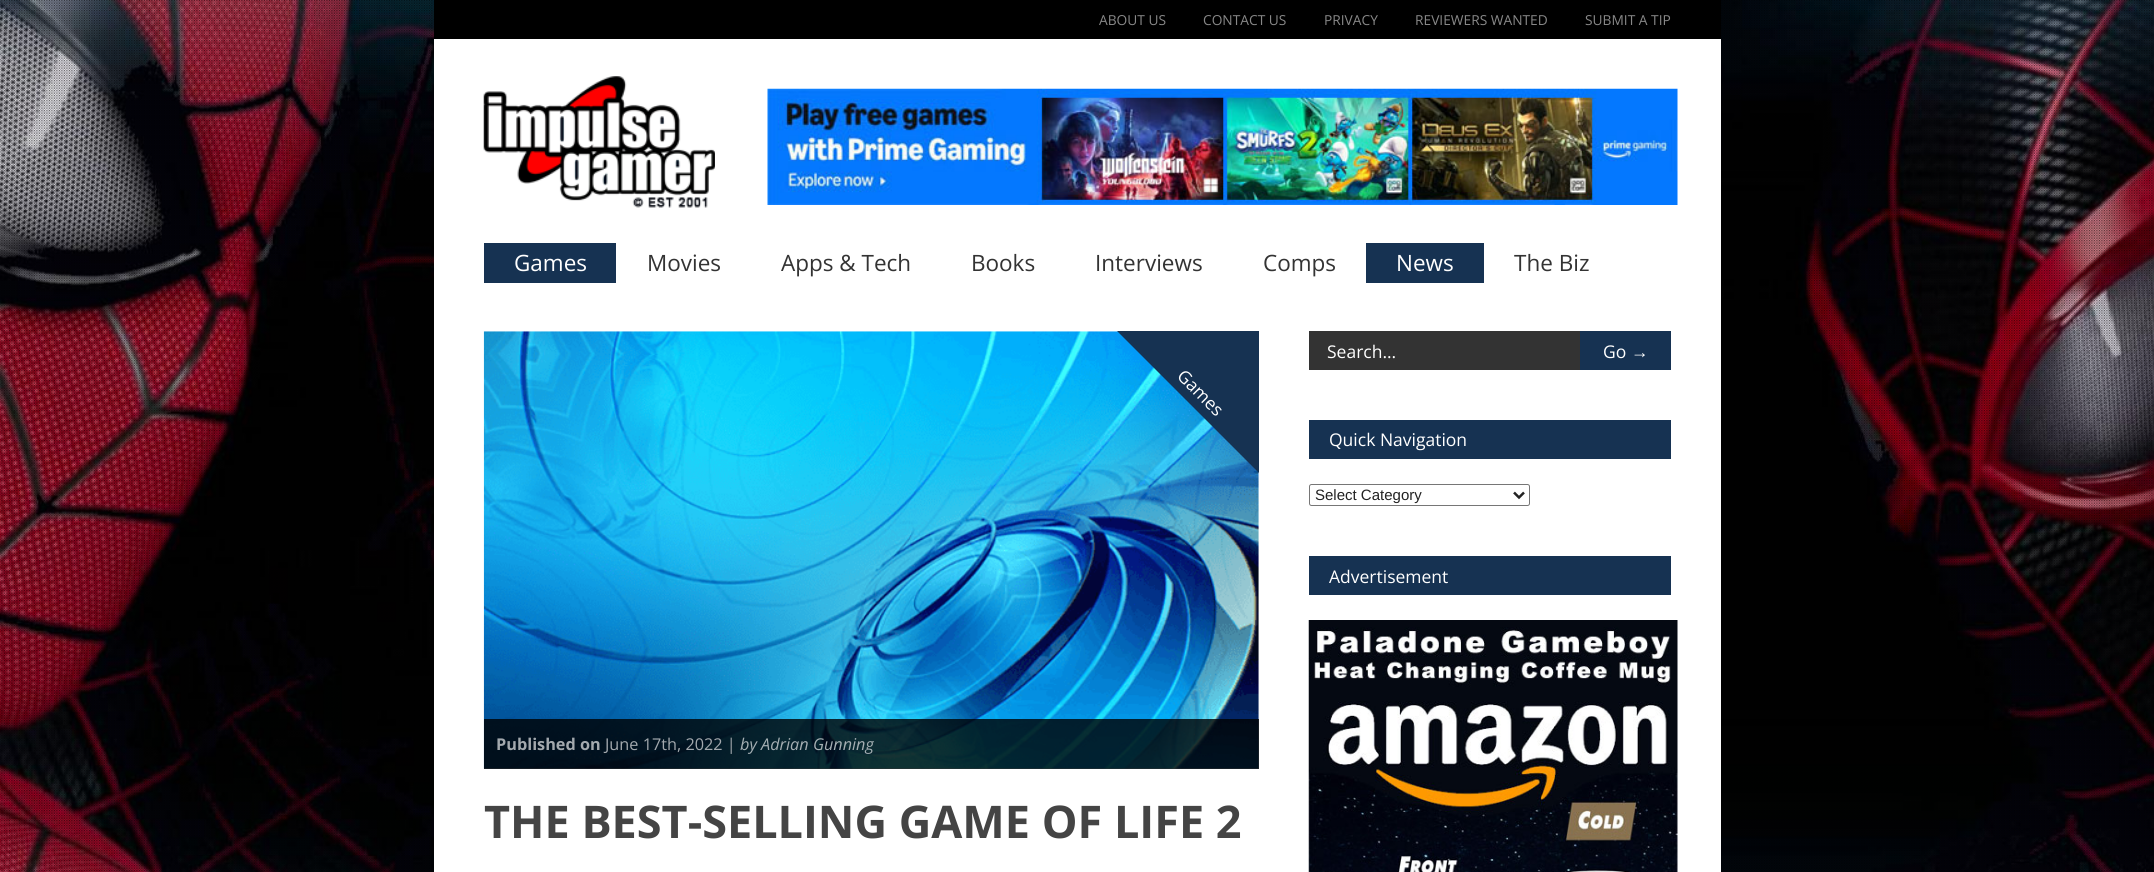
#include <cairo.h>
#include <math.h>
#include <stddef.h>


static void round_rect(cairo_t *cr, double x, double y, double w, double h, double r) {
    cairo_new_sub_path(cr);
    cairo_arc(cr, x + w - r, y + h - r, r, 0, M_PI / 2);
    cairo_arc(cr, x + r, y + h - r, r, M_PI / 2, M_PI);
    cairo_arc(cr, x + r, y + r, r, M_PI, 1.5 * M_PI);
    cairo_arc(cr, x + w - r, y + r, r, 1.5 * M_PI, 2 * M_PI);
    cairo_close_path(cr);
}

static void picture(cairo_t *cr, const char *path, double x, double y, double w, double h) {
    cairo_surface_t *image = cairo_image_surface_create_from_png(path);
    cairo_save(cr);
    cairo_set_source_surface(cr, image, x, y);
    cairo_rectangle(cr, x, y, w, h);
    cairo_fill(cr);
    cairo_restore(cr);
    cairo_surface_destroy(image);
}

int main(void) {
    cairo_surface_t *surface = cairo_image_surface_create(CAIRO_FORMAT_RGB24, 2154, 872);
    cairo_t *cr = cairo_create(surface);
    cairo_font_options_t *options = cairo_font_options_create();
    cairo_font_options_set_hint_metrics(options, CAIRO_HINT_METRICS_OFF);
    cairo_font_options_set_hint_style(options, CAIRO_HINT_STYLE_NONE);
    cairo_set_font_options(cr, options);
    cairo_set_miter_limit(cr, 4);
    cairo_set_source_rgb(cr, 1, 1, 1);
    cairo_paint(cr);
    picture(cr, "img1.png", 0, 0, 2154, 872);
    picture(cr, "img2.png", 0, 0, 2154, 872);
    cairo_set_source_rgb(cr, 0, 0, 0);
    cairo_rectangle(cr, 434, 0, 1287, 39);
    cairo_fill(cr);
    cairo_select_font_face(cr, "Open Sans", CAIRO_FONT_SLANT_NORMAL, CAIRO_FONT_WEIGHT_NORMAL);
    cairo_set_font_size(cr, 13.75);
    cairo_set_source_rgb(cr, 0.533, 0.533, 0.533);
    cairo_move_to(cr, 1099, 25);
    cairo_show_text(cr, "ABOUT US");
    cairo_move_to(cr, 1203, 25);
    cairo_show_text(cr, "CONTACT US");
    cairo_move_to(cr, 1324, 25);
    cairo_show_text(cr, "PRIVACY");
    cairo_move_to(cr, 1415, 25);
    cairo_show_text(cr, "REVIEWERS WANTED");
    cairo_move_to(cr, 1585, 25);
    cairo_show_text(cr, "SUBMIT A TIP");
    cairo_set_source_rgb(cr, 1, 1, 1);
    cairo_rectangle(cr, 434, 39, 1287, 833);
    cairo_fill(cr);
    picture(cr, "img3.png", 483, 76, 232, 132);
    picture(cr, "img4.png", 767, 88, 911, 117);
    cairo_set_source_rgb(cr, 0.086, 0.196, 0.322);
    cairo_rectangle(cr, 484, 243, 132, 40);
    cairo_fill(cr);
    cairo_set_font_size(cr, 22.5);
    cairo_set_source_rgb(cr, 1, 1, 1);
    cairo_move_to(cr, 514, 271);
    cairo_show_text(cr, "Games");
    cairo_set_source_rgb(cr, 0.2, 0.2, 0.2);
    cairo_move_to(cr, 647, 271);
    cairo_show_text(cr, "Movies");
    cairo_move_to(cr, 781, 271);
    cairo_show_text(cr, "Apps & Tech");
    cairo_move_to(cr, 971, 271);
    cairo_show_text(cr, "Books");
    cairo_move_to(cr, 1095, 271);
    cairo_show_text(cr, "Interviews");
    cairo_move_to(cr, 1263, 271);
    cairo_show_text(cr, "Comps");
    cairo_set_source_rgb(cr, 0.086, 0.196, 0.322);
    cairo_rectangle(cr, 1366, 243, 118, 40);
    cairo_fill(cr);
    cairo_set_source_rgb(cr, 1, 1, 1);
    cairo_move_to(cr, 1396, 271);
    cairo_show_text(cr, "News");
    cairo_set_source_rgb(cr, 0.2, 0.2, 0.2);
    cairo_move_to(cr, 1514, 271);
    cairo_show_text(cr, "The Biz");
    picture(cr, "img5.png", 483, 331, 776, 438);
    cairo_save(cr);
    cairo_rectangle(cr, 484, 331, 775, 438);
    cairo_clip(cr);
    cairo_set_source_rgb(cr, 0.086, 0.196, 0.322);
    cairo_new_path(cr);
    cairo_move_to(cr, 1183, 233);
    cairo_line_to(cr, 1360, 410);
    cairo_line_to(cr, 1278, 492);
    cairo_line_to(cr, 1101, 315);
    cairo_close_path(cr);
    cairo_fill(cr);
    cairo_restore(cr);
    cairo_set_font_size(cr, 17.5);
    cairo_set_source_rgb(cr, 1, 1, 1);
    cairo_save(cr);
    cairo_translate(cr, 1176, 377);
    cairo_rotate(cr, 45 * M_PI / 180);
    cairo_move_to(cr, 0, 0);
    cairo_show_text(cr, "Games");
    cairo_restore(cr);
    cairo_set_source_rgba(cr, 0, 0, 0, 0.8);
    cairo_rectangle(cr, 484, 719, 775, 50);
    cairo_fill(cr);
    cairo_select_font_face(cr, "Open Sans", CAIRO_FONT_SLANT_NORMAL, CAIRO_FONT_WEIGHT_BOLD);
    cairo_set_font_size(cr, 16.25);
    cairo_set_source_rgb(cr, 0.639, 0.663, 0.682);
    cairo_move_to(cr, 496, 750);
    cairo_show_text(cr, "Published on");
    cairo_select_font_face(cr, "Open Sans", CAIRO_FONT_SLANT_NORMAL, CAIRO_FONT_WEIGHT_NORMAL);
    cairo_move_to(cr, 605, 750);
    cairo_show_text(cr, "June 17th, 2022 |");
    cairo_select_font_face(cr, "Open Sans", CAIRO_FONT_SLANT_ITALIC, CAIRO_FONT_WEIGHT_NORMAL);
    cairo_set_source_rgb(cr, 0.647, 0.686, 0.702);
    cairo_move_to(cr, 740, 750);
    cairo_show_text(cr, "by Adrian Gunning");
    cairo_select_font_face(cr, "Open Sans", CAIRO_FONT_SLANT_NORMAL, CAIRO_FONT_WEIGHT_BOLD);
    cairo_set_font_size(cr, 45);
    cairo_set_source_rgb(cr, 0.267, 0.267, 0.267);
    cairo_move_to(cr, 484, 838);
    cairo_show_text(cr, "THE BEST-SELLING GAME OF LIFE 2");
    cairo_set_source_rgb(cr, 0.2, 0.2, 0.2);
    cairo_rectangle(cr, 1309, 331, 271, 39);
    cairo_fill(cr);
    cairo_select_font_face(cr, "Open Sans", CAIRO_FONT_SLANT_NORMAL, CAIRO_FONT_WEIGHT_NORMAL);
    cairo_set_font_size(cr, 17.5);
    cairo_set_source_rgb(cr, 1, 1, 1);
    cairo_move_to(cr, 1327, 358);
    cairo_show_text(cr, "Search...");
    cairo_set_source_rgb(cr, 0.086, 0.196, 0.322);
    cairo_rectangle(cr, 1580, 331, 91, 39);
    cairo_fill(cr);
    cairo_set_source_rgb(cr, 1, 1, 1);
    cairo_move_to(cr, 1603, 358);
    cairo_show_text(cr, "Go");
    cairo_select_font_face(cr, "Liberation Sans", CAIRO_FONT_SLANT_NORMAL, CAIRO_FONT_WEIGHT_NORMAL);
    cairo_move_to(cr, 1631, 358);
    cairo_show_text(cr, "→");
    cairo_set_source_rgb(cr, 0.086, 0.196, 0.322);
    cairo_rectangle(cr, 1309, 420, 362, 39);
    cairo_fill(cr);
    cairo_select_font_face(cr, "Open Sans", CAIRO_FONT_SLANT_NORMAL, CAIRO_FONT_WEIGHT_NORMAL);
    cairo_set_source_rgb(cr, 1, 1, 1);
    cairo_move_to(cr, 1329, 446);
    cairo_show_text(cr, "Quick Navigation");
    round_rect(cr, 1309.5, 484.5, 220, 21, 2);
    cairo_set_source_rgb(cr, 0.463, 0.463, 0.463);
    cairo_set_line_width(cr, 1);
    cairo_stroke(cr);
    cairo_new_path(cr);
    cairo_move_to(cr, 1514, 492.5);
    cairo_line_to(cr, 1519, 497.5);
    cairo_line_to(cr, 1524, 492.5);
    cairo_set_source_rgb(cr, 0.133, 0.133, 0.133);
    cairo_set_line_width(cr, 2.5);
    cairo_stroke(cr);
    cairo_select_font_face(cr, "Liberation Sans", CAIRO_FONT_SLANT_NORMAL, CAIRO_FONT_WEIGHT_NORMAL);
    cairo_set_font_size(cr, 15);
    cairo_move_to(cr, 1315, 500);
    cairo_show_text(cr, "Select Category");
    cairo_set_source_rgb(cr, 0.086, 0.196, 0.322);
    cairo_rectangle(cr, 1309, 556, 362, 39);
    cairo_fill(cr);
    cairo_select_font_face(cr, "Open Sans", CAIRO_FONT_SLANT_NORMAL, CAIRO_FONT_WEIGHT_NORMAL);
    cairo_set_font_size(cr, 17.5);
    cairo_set_source_rgb(cr, 1, 1, 1);
    cairo_move_to(cr, 1329, 583);
    cairo_show_text(cr, "Advertisement");
    picture(cr, "img6.png", 1308, 620, 370, 252);
    cairo_surface_write_to_png(surface, "page.png");
    cairo_font_options_destroy(options);
    cairo_destroy(cr);
    cairo_surface_destroy(surface);
    return 0;
}
